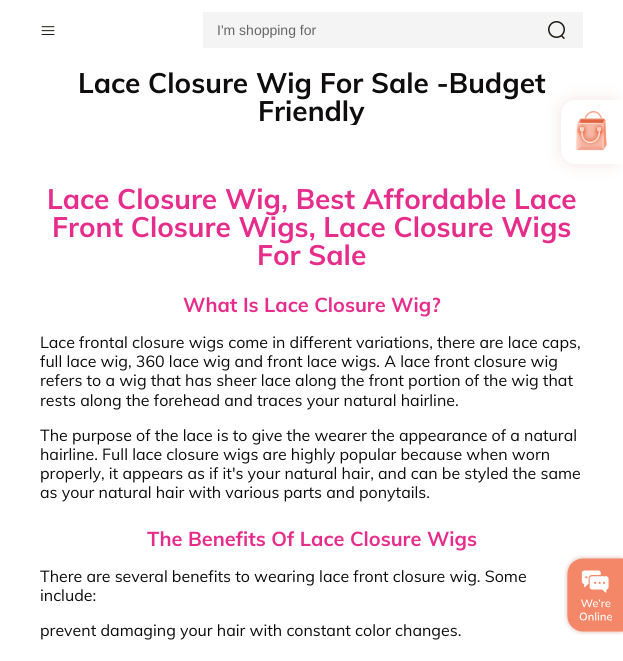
#include <cairo.h>
#include <math.h>
#include <stddef.h>


static void round_rect(cairo_t *cr, double x, double y, double w, double h, double r) {
    cairo_new_sub_path(cr);
    cairo_arc(cr, x + w - r, y + h - r, r, 0, M_PI / 2);
    cairo_arc(cr, x + r, y + h - r, r, M_PI / 2, M_PI);
    cairo_arc(cr, x + r, y + r, r, M_PI, 1.5 * M_PI);
    cairo_arc(cr, x + w - r, y + r, r, 1.5 * M_PI, 2 * M_PI);
    cairo_close_path(cr);
}

static void shadow(cairo_t *cr, double x, double y, double w, double h, double r, double blur, double alpha) {
    cairo_push_group_with_content(cr, CAIRO_CONTENT_ALPHA);
    cairo_set_operator(cr, CAIRO_OPERATOR_SOURCE);
    for (int i = 15; i >= -15 && fmin(w, h) + blur * i / 3 > 0; i -= 2) {
        double e = blur * i / 6;
        cairo_set_source_rgba(cr, 0, 0, 0, alpha * erfc((i - 1) / 8.5) / 2);
        round_rect(cr, x - e, y - e, w + 2 * e, h + 2 * e, fmax(0, fmin(r + e + blur * .6, fmin(w, h) / 2 + e)));
        cairo_fill(cr);
    }
    cairo_pattern_t *soft = cairo_pop_group(cr);
    cairo_mask(cr, soft);
    cairo_pattern_destroy(soft);
}

static void picture(cairo_t *cr, const char *path, double x, double y, double w, double h) {
    cairo_surface_t *image = cairo_image_surface_create_from_png(path);
    cairo_save(cr);
    cairo_set_source_surface(cr, image, x, y);
    cairo_rectangle(cr, x, y, w, h);
    cairo_fill(cr);
    cairo_restore(cr);
    cairo_surface_destroy(image);
}

int main(void) {
    cairo_surface_t *surface = cairo_image_surface_create(CAIRO_FORMAT_RGB24, 623, 661);
    cairo_t *cr = cairo_create(surface);
    cairo_font_options_t *options = cairo_font_options_create();
    cairo_font_options_set_hint_metrics(options, CAIRO_HINT_METRICS_OFF);
    cairo_font_options_set_hint_style(options, CAIRO_HINT_STYLE_NONE);
    cairo_set_font_options(cr, options);
    cairo_set_miter_limit(cr, 4);
    cairo_set_source_rgb(cr, 1, 1, 1);
    cairo_paint(cr);
    picture(cr, "img1.png", 41, 26, 14, 9);
    cairo_set_source_rgb(cr, 0.957, 0.957, 0.957);
    cairo_rectangle(cr, 203, 12, 380, 36);
    cairo_fill(cr);
    cairo_select_font_face(cr, "Liberation Sans", CAIRO_FONT_SLANT_NORMAL, CAIRO_FONT_WEIGHT_NORMAL);
    cairo_set_font_size(cr, 14);
    cairo_set_source_rgb(cr, 0.4, 0.4, 0.4);
    cairo_move_to(cr, 217, 35);
    cairo_show_text(cr, "I'm shopping for");
    picture(cr, "img2.png", 548, 21, 17, 18);
    cairo_select_font_face(cr, "Muli", CAIRO_FONT_SLANT_NORMAL, CAIRO_FONT_WEIGHT_BOLD);
    cairo_set_font_size(cr, 28);
    cairo_set_source_rgb(cr, 0.055, 0.047, 0.047);
    cairo_move_to(cr, 78, 93);
    cairo_show_text(cr, "Lace Closure Wig For Sale -Budget");
    cairo_save(cr);
    cairo_rectangle(cr, 40, 69, 543, 56);
    cairo_clip(cr);
    cairo_move_to(cr, 258, 121);
    cairo_show_text(cr, "Friendly");
    cairo_restore(cr);
    cairo_set_source_rgb(cr, 0.906, 0.176, 0.545);
    cairo_move_to(cr, 47, 209);
    cairo_show_text(cr, "Lace Closure Wig, Best Affordable Lace");
    cairo_move_to(cr, 52, 237);
    cairo_show_text(cr, "Front Closure Wigs, Lace Closure Wigs");
    cairo_move_to(cr, 257, 265);
    cairo_show_text(cr, "For Sale");
    cairo_set_font_size(cr, 20);
    cairo_move_to(cr, 183, 312);
    cairo_show_text(cr, "What Is Lace Closure Wig?");
    cairo_select_font_face(cr, "Muli", CAIRO_FONT_SLANT_NORMAL, CAIRO_FONT_WEIGHT_NORMAL);
    cairo_set_font_size(cr, 16);
    cairo_set_source_rgb(cr, 0.055, 0.047, 0.047);
    cairo_move_to(cr, 40, 348);
    cairo_show_text(cr, "Lace frontal closure wigs come in different variations, there are lace caps,");
    cairo_move_to(cr, 40, 367);
    cairo_show_text(cr, "full lace wig, 360 lace wig and front lace wigs. A lace front closure wig");
    cairo_move_to(cr, 40, 386);
    cairo_show_text(cr, "refers to a wig that has sheer lace along the front portion of the wig that");
    cairo_move_to(cr, 40, 406);
    cairo_show_text(cr, "rests along the forehead and traces your natural hairline.");
    cairo_move_to(cr, 40, 441);
    cairo_show_text(cr, "The purpose of the lace is to give the wearer the appearance of a natural");
    cairo_move_to(cr, 40, 460);
    cairo_show_text(cr, "hairline. Full lace closure wigs are highly popular because when worn");
    cairo_move_to(cr, 40, 479);
    cairo_show_text(cr, "properly, it appears as if it's your natural hair, and can be styled the same");
    cairo_move_to(cr, 40, 498);
    cairo_show_text(cr, "as your natural hair with various parts and ponytails.");
    cairo_select_font_face(cr, "Muli", CAIRO_FONT_SLANT_NORMAL, CAIRO_FONT_WEIGHT_BOLD);
    cairo_set_font_size(cr, 20);
    cairo_set_source_rgb(cr, 0.906, 0.176, 0.545);
    cairo_move_to(cr, 147, 546);
    cairo_show_text(cr, "The Benefits Of Lace Closure Wigs");
    cairo_select_font_face(cr, "Muli", CAIRO_FONT_SLANT_NORMAL, CAIRO_FONT_WEIGHT_NORMAL);
    cairo_set_font_size(cr, 16);
    cairo_set_source_rgb(cr, 0.055, 0.047, 0.047);
    cairo_move_to(cr, 40, 582);
    cairo_show_text(cr, "There are several benefits to wearing lace front closure wig. Some");
    cairo_move_to(cr, 40, 601);
    cairo_show_text(cr, "include:");
    cairo_move_to(cr, 40, 636);
    cairo_show_text(cr, "prevent damaging your hair with constant color changes.");
    cairo_set_source_rgb(cr, 0.706, 0.435, 0.353);
    shadow(cr, 561, 100, 62, 64, 14, 8, 0.18);
    cairo_set_source_rgb(cr, 1, 1, 1);
    cairo_new_path(cr);
    cairo_move_to(cr, 575, 100);
    cairo_line_to(cr, 623, 100);
    cairo_line_to(cr, 623, 164);
    cairo_line_to(cr, 575, 164);
    cairo_curve_to(cr, 567.5, 164, 561, 157.5, 561, 150);
    cairo_line_to(cr, 561, 114);
    cairo_curve_to(cr, 561, 106.5, 567.5, 100, 575, 100);
    cairo_close_path(cr);
    cairo_fill(cr);
    picture(cr, "img3.png", 575, 111, 32, 40);
    picture(cr, "img4.png", 564, 555, 59, 80);
    cairo_surface_write_to_png(surface, "page.png");
    cairo_font_options_destroy(options);
    cairo_destroy(cr);
    cairo_surface_destroy(surface);
    return 0;
}
